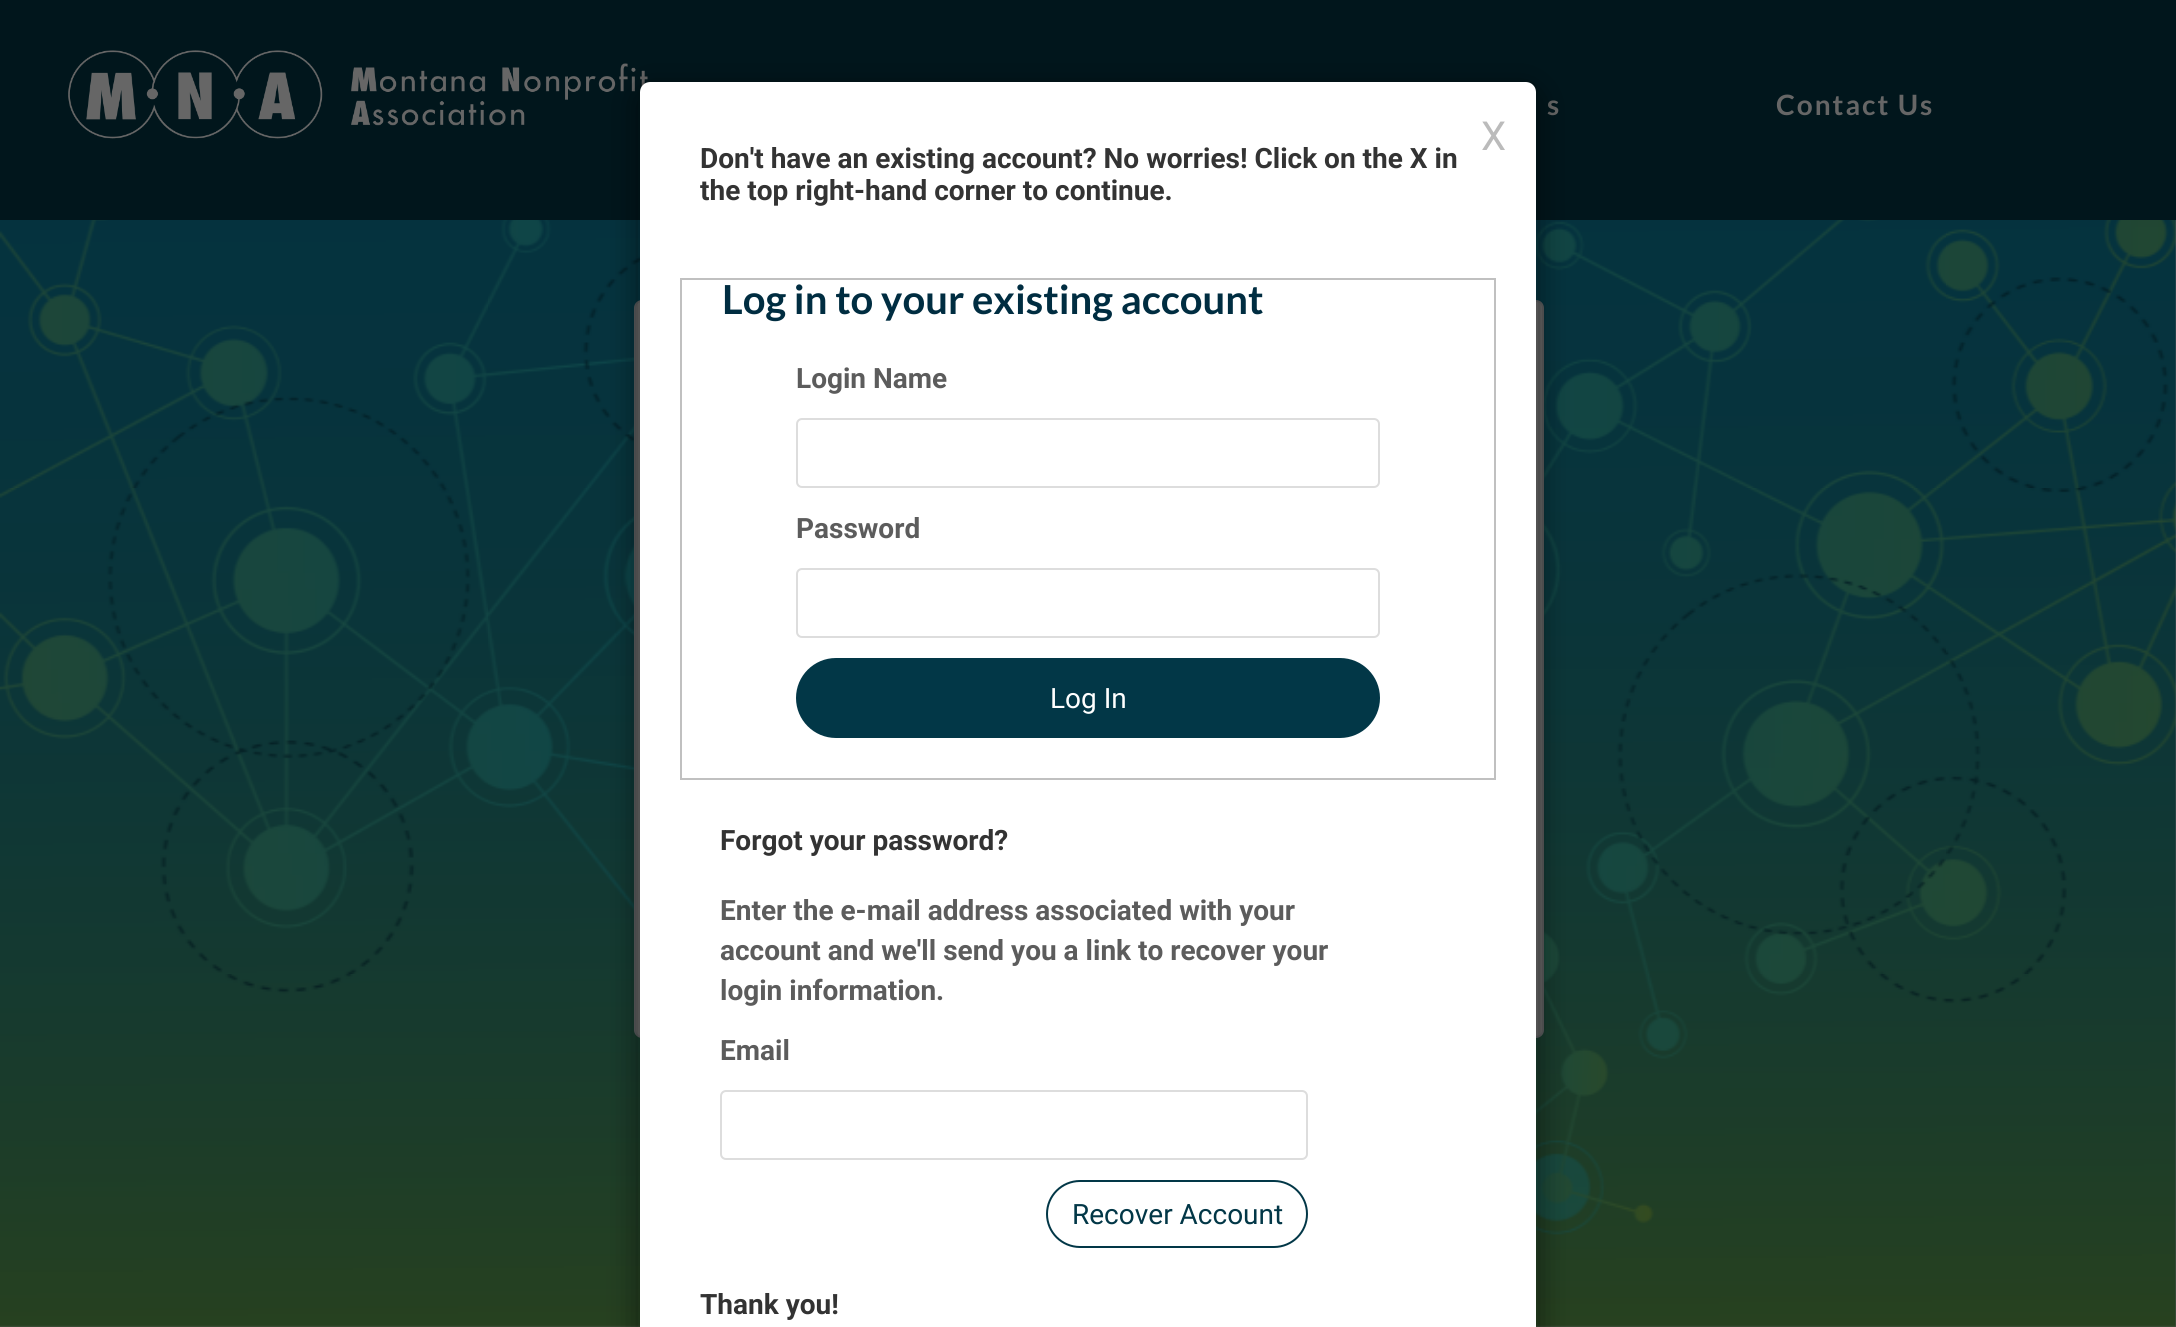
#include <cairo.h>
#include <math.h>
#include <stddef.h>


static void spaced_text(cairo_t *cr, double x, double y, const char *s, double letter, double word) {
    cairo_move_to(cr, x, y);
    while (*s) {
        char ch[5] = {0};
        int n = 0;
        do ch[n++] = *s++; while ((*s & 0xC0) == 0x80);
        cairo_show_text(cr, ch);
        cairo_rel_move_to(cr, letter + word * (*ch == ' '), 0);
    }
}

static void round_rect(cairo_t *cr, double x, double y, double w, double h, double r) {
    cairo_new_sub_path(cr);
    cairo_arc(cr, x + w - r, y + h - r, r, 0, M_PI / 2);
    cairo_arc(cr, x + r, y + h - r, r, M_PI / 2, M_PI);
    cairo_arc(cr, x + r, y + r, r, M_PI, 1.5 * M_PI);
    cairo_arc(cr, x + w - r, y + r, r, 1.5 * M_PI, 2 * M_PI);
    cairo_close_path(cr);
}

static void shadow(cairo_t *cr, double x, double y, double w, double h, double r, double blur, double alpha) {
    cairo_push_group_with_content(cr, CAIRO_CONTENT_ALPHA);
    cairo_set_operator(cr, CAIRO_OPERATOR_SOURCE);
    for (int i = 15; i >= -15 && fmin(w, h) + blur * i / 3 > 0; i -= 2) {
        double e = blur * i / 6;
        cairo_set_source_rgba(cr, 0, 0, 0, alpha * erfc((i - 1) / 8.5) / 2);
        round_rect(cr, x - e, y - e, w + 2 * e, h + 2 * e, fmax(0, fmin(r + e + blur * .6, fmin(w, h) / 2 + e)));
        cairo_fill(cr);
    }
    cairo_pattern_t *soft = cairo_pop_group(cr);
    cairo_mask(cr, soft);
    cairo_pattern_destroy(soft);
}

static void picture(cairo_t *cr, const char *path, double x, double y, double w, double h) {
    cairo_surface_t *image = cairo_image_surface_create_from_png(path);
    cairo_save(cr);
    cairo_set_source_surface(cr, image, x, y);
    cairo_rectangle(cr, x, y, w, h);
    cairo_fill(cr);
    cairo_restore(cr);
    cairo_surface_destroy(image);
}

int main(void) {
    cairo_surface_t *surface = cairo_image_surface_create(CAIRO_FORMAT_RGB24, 2176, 1327);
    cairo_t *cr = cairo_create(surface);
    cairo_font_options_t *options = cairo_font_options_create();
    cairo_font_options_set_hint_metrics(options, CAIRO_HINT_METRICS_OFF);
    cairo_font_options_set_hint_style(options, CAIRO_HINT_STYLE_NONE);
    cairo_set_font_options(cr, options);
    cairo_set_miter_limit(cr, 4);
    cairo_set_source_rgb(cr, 0.365, 0.365, 0.384);
    cairo_paint(cr);
    cairo_set_source_rgb(cr, 0.004, 0.086, 0.11);
    cairo_rectangle(cr, 0, 0, 2176, 220);
    cairo_fill(cr);
    picture(cr, "img1.png", 68, 50, 580, 89);
    cairo_select_font_face(cr, "Lato", CAIRO_FONT_SLANT_NORMAL, CAIRO_FONT_WEIGHT_BOLD);
    cairo_set_font_size(cr, 28);
    cairo_set_source_rgb(cr, 0.4, 0.4, 0.4);
    spaced_text(cr, 1547, 115, "s", 2, 0);
    spaced_text(cr, 1776, 115, "Contact Us", 2, 0);
    picture(cr, "img2.png", 0, 220, 2176, 1107);
    round_rect(cr, 635, 301, 908, 736, 7);
    cairo_fill_preserve(cr);
    cairo_set_source_rgb(cr, 0.361, 0.365, 0.373);
    cairo_stroke(cr);
    cairo_save(cr);
    cairo_set_fill_rule(cr, CAIRO_FILL_RULE_EVEN_ODD);
    cairo_new_path(cr);
    cairo_move_to(cr, 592, 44);
    cairo_line_to(cr, 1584, 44);
    cairo_line_to(cr, 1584, 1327);
    cairo_line_to(cr, 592, 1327);
    cairo_close_path(cr);
    cairo_move_to(cr, 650, 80);
    cairo_line_to(cr, 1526, 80);
    cairo_curve_to(cr, 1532.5, 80, 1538, 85.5, 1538, 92);
    cairo_line_to(cr, 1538, 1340);
    cairo_curve_to(cr, 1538, 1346.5, 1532.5, 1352, 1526, 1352);
    cairo_line_to(cr, 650, 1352);
    cairo_curve_to(cr, 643.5, 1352, 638, 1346.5, 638, 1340);
    cairo_line_to(cr, 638, 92);
    cairo_curve_to(cr, 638, 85.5, 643.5, 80, 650, 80);
    cairo_close_path(cr);
    cairo_clip(cr);
    cairo_set_source_rgb(cr, 0, 0, 0);
    shadow(cr, 638, 90, 900, 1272, 12, 15, 0.5);
    cairo_restore(cr);
    cairo_set_source_rgb(cr, 1, 1, 1);
    round_rect(cr, 640, 82, 896, 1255, 10);
    cairo_fill(cr);
    round_rect(cr, 639, 81, 898, 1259, 11);
    cairo_set_source_rgba(cr, 0, 0, 0, 0.2);
    cairo_stroke(cr);
    cairo_select_font_face(cr, "Roboto", CAIRO_FONT_SLANT_NORMAL, CAIRO_FONT_WEIGHT_NORMAL);
    cairo_set_font_size(cr, 40);
    cairo_set_source_rgb(cr, 0.733, 0.733, 0.733);
    cairo_move_to(cr, 1481, 150);
    cairo_show_text(cr, "X");
    cairo_select_font_face(cr, "Roboto", CAIRO_FONT_SLANT_NORMAL, CAIRO_FONT_WEIGHT_BOLD);
    cairo_set_font_size(cr, 28);
    cairo_set_source_rgb(cr, 0.2, 0.2, 0.2);
    cairo_move_to(cr, 700, 168);
    cairo_show_text(cr, "Don't have an existing account? No worries! Click on the X in");
    cairo_move_to(cr, 700, 200);
    cairo_show_text(cr, "the top right-hand corner to continue.");
    cairo_rectangle(cr, 681, 279, 814, 500);
    cairo_set_source_rgb(cr, 0.753, 0.753, 0.753);
    cairo_stroke(cr);
    cairo_select_font_face(cr, "Lato", CAIRO_FONT_SLANT_NORMAL, CAIRO_FONT_WEIGHT_BOLD);
    cairo_set_font_size(cr, 40);
    cairo_set_source_rgb(cr, 0, 0.176, 0.255);
    cairo_move_to(cr, 722, 314);
    cairo_show_text(cr, "Log in to your existing account");
    cairo_select_font_face(cr, "Roboto", CAIRO_FONT_SLANT_NORMAL, CAIRO_FONT_WEIGHT_BOLD);
    cairo_set_font_size(cr, 28);
    cairo_set_source_rgb(cr, 0.361, 0.361, 0.361);
    cairo_move_to(cr, 796, 388);
    cairo_show_text(cr, "Login Name");
    round_rect(cr, 797, 419, 582, 68, 5);
    cairo_set_source_rgb(cr, 0.867, 0.867, 0.867);
    cairo_stroke(cr);
    cairo_set_source_rgb(cr, 0.361, 0.361, 0.361);
    cairo_move_to(cr, 796, 538);
    cairo_show_text(cr, "Password");
    round_rect(cr, 797, 569, 582, 68, 5);
    cairo_set_source_rgb(cr, 0.867, 0.867, 0.867);
    cairo_stroke(cr);
    cairo_set_source_rgb(cr, 0.008, 0.216, 0.278);
    round_rect(cr, 796, 658, 584, 80, 40);
    cairo_fill(cr);
    cairo_select_font_face(cr, "Roboto", CAIRO_FONT_SLANT_NORMAL, CAIRO_FONT_WEIGHT_NORMAL);
    cairo_set_source_rgb(cr, 1, 1, 1);
    cairo_move_to(cr, 1050, 708);
    cairo_show_text(cr, "Log In");
    cairo_select_font_face(cr, "Roboto", CAIRO_FONT_SLANT_NORMAL, CAIRO_FONT_WEIGHT_BOLD);
    cairo_set_source_rgb(cr, 0.2, 0.2, 0.2);
    cairo_move_to(cr, 720, 850);
    cairo_show_text(cr, "Forgot your password?");
    cairo_set_source_rgb(cr, 0.361, 0.361, 0.361);
    cairo_move_to(cr, 720, 920);
    cairo_show_text(cr, "Enter the e-mail address associated with your");
    cairo_move_to(cr, 720, 960);
    cairo_show_text(cr, "account and we'll send you a link to recover your");
    cairo_move_to(cr, 720, 1000);
    cairo_show_text(cr, "login information.");
    cairo_move_to(cr, 720, 1060);
    cairo_show_text(cr, "Email");
    round_rect(cr, 721, 1091, 586, 68, 5);
    cairo_set_source_rgb(cr, 0.867, 0.867, 0.867);
    cairo_stroke(cr);
    round_rect(cr, 1047, 1181, 260, 66, 33);
    cairo_set_source_rgb(cr, 0.008, 0.216, 0.278);
    cairo_stroke(cr);
    cairo_select_font_face(cr, "Roboto", CAIRO_FONT_SLANT_NORMAL, CAIRO_FONT_WEIGHT_NORMAL);
    cairo_move_to(cr, 1072, 1224);
    cairo_show_text(cr, "Recover Account");
    cairo_select_font_face(cr, "Roboto", CAIRO_FONT_SLANT_NORMAL, CAIRO_FONT_WEIGHT_BOLD);
    cairo_set_source_rgb(cr, 0.2, 0.2, 0.2);
    cairo_move_to(cr, 700, 1314);
    cairo_show_text(cr, "Thank you!");
    cairo_surface_write_to_png(surface, "page.png");
    cairo_font_options_destroy(options);
    cairo_destroy(cr);
    cairo_surface_destroy(surface);
    return 0;
}
